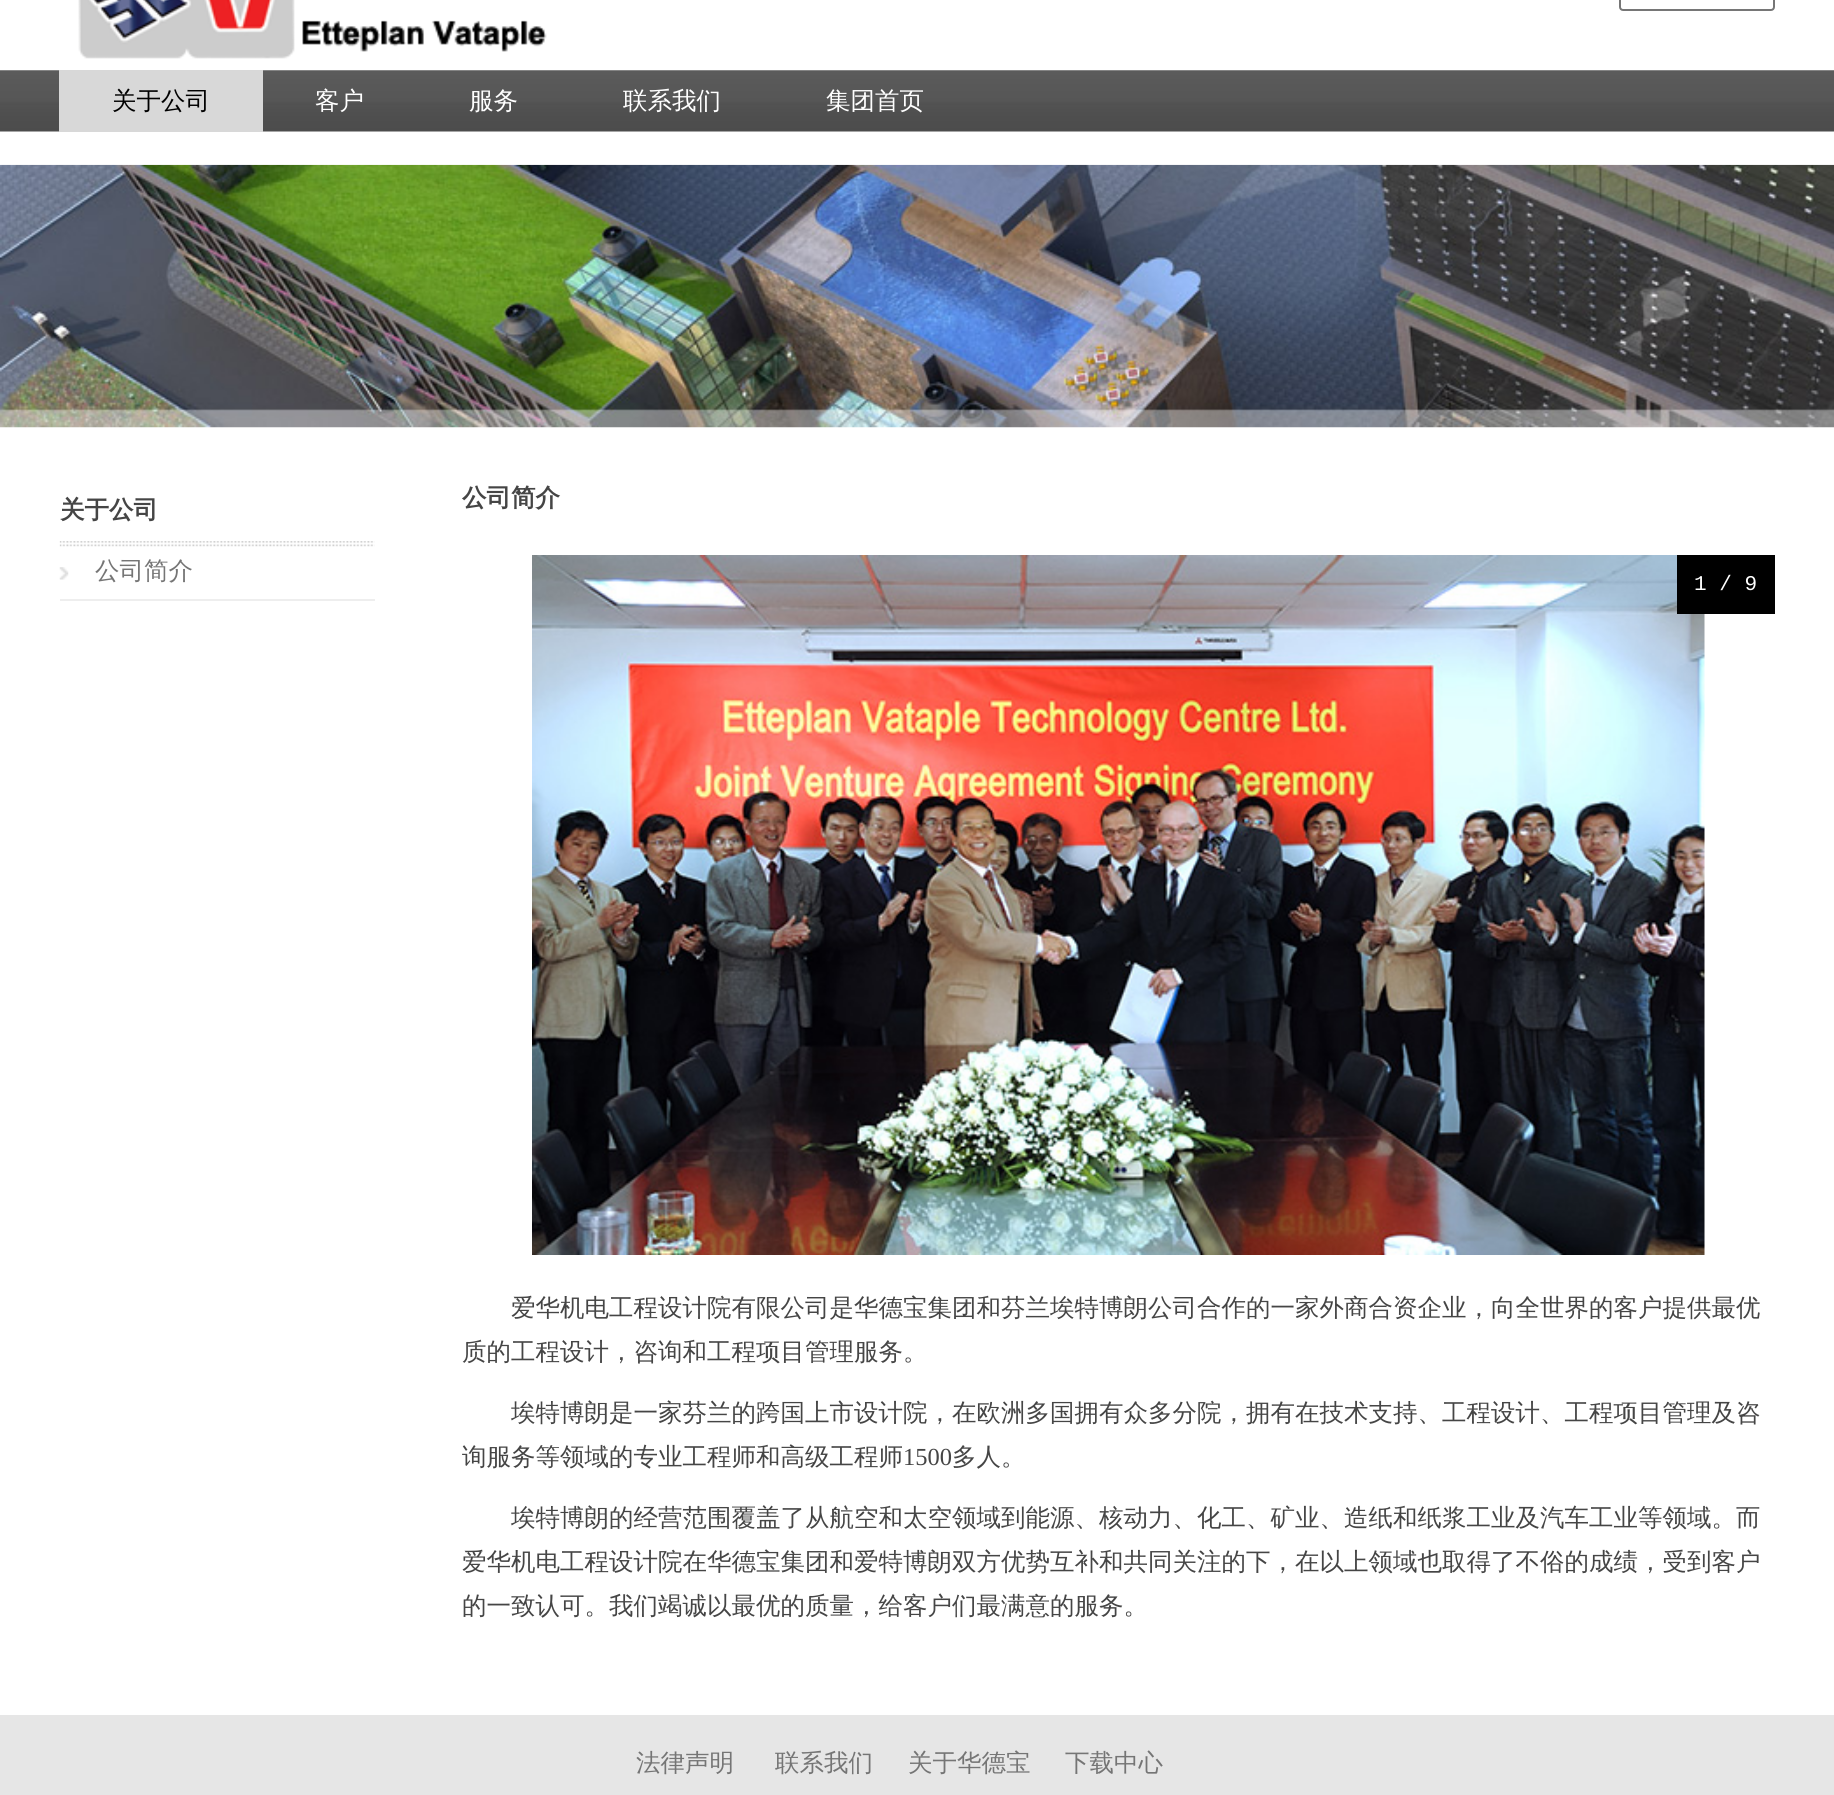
#include <cairo.h>
#include <math.h>
#include <stddef.h>


static void round_rect(cairo_t *cr, double x, double y, double w, double h, double r) {
    cairo_new_sub_path(cr);
    cairo_arc(cr, x + w - r, y + h - r, r, 0, M_PI / 2);
    cairo_arc(cr, x + r, y + h - r, r, M_PI / 2, M_PI);
    cairo_arc(cr, x + r, y + r, r, M_PI, 1.5 * M_PI);
    cairo_arc(cr, x + w - r, y + r, r, 1.5 * M_PI, 2 * M_PI);
    cairo_close_path(cr);
}

static void picture(cairo_t *cr, const char *path, double x, double y, double w, double h) {
    cairo_surface_t *image = cairo_image_surface_create_from_png(path);
    cairo_save(cr);
    cairo_set_source_surface(cr, image, x, y);
    cairo_rectangle(cr, x, y, w, h);
    cairo_fill(cr);
    cairo_restore(cr);
    cairo_surface_destroy(image);
}

int main(void) {
    cairo_surface_t *surface = cairo_image_surface_create(CAIRO_FORMAT_RGB24, 1834, 1795);
    cairo_t *cr = cairo_create(surface);
    cairo_font_options_t *options = cairo_font_options_create();
    cairo_font_options_set_hint_metrics(options, CAIRO_HINT_METRICS_OFF);
    cairo_font_options_set_hint_style(options, CAIRO_HINT_STYLE_NONE);
    cairo_set_font_options(cr, options);
    cairo_set_miter_limit(cr, 4);
    cairo_set_source_rgb(cr, 1, 1, 1);
    cairo_paint(cr);
    picture(cr, "img1.png", 78, 0, 469, 59);
    round_rect(cr, 1620, -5, 154, 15, 3);
    cairo_set_source_rgb(cr, 0.463, 0.463, 0.463);
    cairo_stroke(cr);
    picture(cr, "img2.png", 0, 70, 1834, 62);
    cairo_set_source_rgb(cr, 0.847, 0.847, 0.847);
    cairo_rectangle(cr, 59, 70, 204, 62);
    cairo_fill(cr);
    cairo_select_font_face(cr, "WenQuanYi Zen Hei Medium", CAIRO_FONT_SLANT_NORMAL, CAIRO_FONT_WEIGHT_NORMAL);
    cairo_set_font_size(cr, 24.5);
    cairo_set_source_rgb(cr, 0, 0, 0);
    cairo_move_to(cr, 112, 109);
    cairo_show_text(cr, "关于公司");
    cairo_set_source_rgb(cr, 1, 1, 1);
    cairo_move_to(cr, 315, 109);
    cairo_show_text(cr, "客户");
    cairo_move_to(cr, 469, 109);
    cairo_show_text(cr, "服务");
    cairo_move_to(cr, 623, 109);
    cairo_show_text(cr, "联系我们");
    cairo_move_to(cr, 826, 109);
    cairo_show_text(cr, "集团首页");
    picture(cr, "img3.png", 0, 164, 1834, 264);
    picture(cr, "img4.png", 59, 541, 316, 6);
    cairo_select_font_face(cr, "WenQuanYi Zen Hei", CAIRO_FONT_SLANT_NORMAL, CAIRO_FONT_WEIGHT_BOLD);
    cairo_set_source_rgb(cr, 0.271, 0.271, 0.271);
    cairo_move_to(cr, 60, 518);
    cairo_show_text(cr, "关于公司");
    picture(cr, "img5.png", 59, 567, 10, 13);
    cairo_set_source_rgb(cr, 0.933, 0.933, 0.933);
    cairo_rectangle(cr, 60, 599, 315, 2);
    cairo_fill(cr);
    cairo_select_font_face(cr, "WenQuanYi Zen Hei Medium", CAIRO_FONT_SLANT_NORMAL, CAIRO_FONT_WEIGHT_NORMAL);
    cairo_set_source_rgb(cr, 0.459, 0.459, 0.459);
    cairo_move_to(cr, 95, 579);
    cairo_show_text(cr, "公司简介");
    cairo_select_font_face(cr, "WenQuanYi Zen Hei", CAIRO_FONT_SLANT_NORMAL, CAIRO_FONT_WEIGHT_BOLD);
    cairo_set_source_rgb(cr, 0.271, 0.271, 0.271);
    cairo_move_to(cr, 462, 506);
    cairo_show_text(cr, "公司简介");
    picture(cr, "img6.png", 532, 555, 1173, 700);
    cairo_set_source_rgb(cr, 0, 0, 0);
    cairo_rectangle(cr, 1677, 555, 98, 59);
    cairo_fill(cr);
    cairo_select_font_face(cr, "Liberation Mono", CAIRO_FONT_SLANT_NORMAL, CAIRO_FONT_WEIGHT_NORMAL);
    cairo_set_font_size(cr, 21);
    cairo_set_source_rgb(cr, 1, 1, 1);
    cairo_move_to(cr, 1694, 590);
    cairo_show_text(cr, "1 / 9");
    cairo_select_font_face(cr, "WenQuanYi Zen Hei Medium", CAIRO_FONT_SLANT_NORMAL, CAIRO_FONT_WEIGHT_NORMAL);
    cairo_set_font_size(cr, 24.5);
    cairo_set_source_rgb(cr, 0.271, 0.271, 0.271);
    cairo_move_to(cr, 511, 1316);
    cairo_show_text(cr, "爱华机电工程设计院有限公司是华德宝集团和芬兰埃特博朗公司合作的一家外商合资企业，向全世界的客户提供最优");
    cairo_move_to(cr, 462, 1360);
    cairo_show_text(cr, "质的工程设计，咨询和工程项目管理服务。");
    cairo_move_to(cr, 511, 1421);
    cairo_show_text(cr, "埃特博朗是一家芬兰的跨国上市设计院，在欧洲多国拥有众多分院，拥有在技术支持、工程设计、工程项目管理及咨");
    cairo_move_to(cr, 462, 1465);
    cairo_show_text(cr, "询服务等领域的专业工程师和高级工程师");
    cairo_select_font_face(cr, "Liberation Serif", CAIRO_FONT_SLANT_NORMAL, CAIRO_FONT_WEIGHT_NORMAL);
    cairo_move_to(cr, 903, 1465);
    cairo_show_text(cr, "1500");
    cairo_select_font_face(cr, "WenQuanYi Zen Hei Medium", CAIRO_FONT_SLANT_NORMAL, CAIRO_FONT_WEIGHT_NORMAL);
    cairo_move_to(cr, 952, 1465);
    cairo_show_text(cr, "多人。");
    cairo_move_to(cr, 511, 1526);
    cairo_show_text(cr, "埃特博朗的经营范围覆盖了从航空和太空领域到能源、核动力、化工、矿业、造纸和纸浆工业及汽车工业等领域。而");
    cairo_move_to(cr, 462, 1570);
    cairo_show_text(cr, "爱华机电工程设计院在华德宝集团和爱特博朗双方优势互补和共同关注的下，在以上领域也取得了不俗的成绩，受到客户");
    cairo_move_to(cr, 462, 1614);
    cairo_show_text(cr, "的一致认可。我们竭诚以最优的质量，给客户们最满意的服务。");
    cairo_set_source_rgb(cr, 0.902, 0.902, 0.902);
    cairo_rectangle(cr, 0, 1715, 1834, 80);
    cairo_fill(cr);
    cairo_set_source_rgb(cr, 0.459, 0.459, 0.459);
    cairo_move_to(cr, 636, 1771);
    cairo_show_text(cr, "法律声明");
    cairo_move_to(cr, 775, 1771);
    cairo_show_text(cr, "联系我们");
    cairo_move_to(cr, 908, 1771);
    cairo_show_text(cr, "关于华德宝");
    cairo_move_to(cr, 1065, 1771);
    cairo_show_text(cr, "下载中心");
    cairo_surface_write_to_png(surface, "page.png");
    cairo_font_options_destroy(options);
    cairo_destroy(cr);
    cairo_surface_destroy(surface);
    return 0;
}
